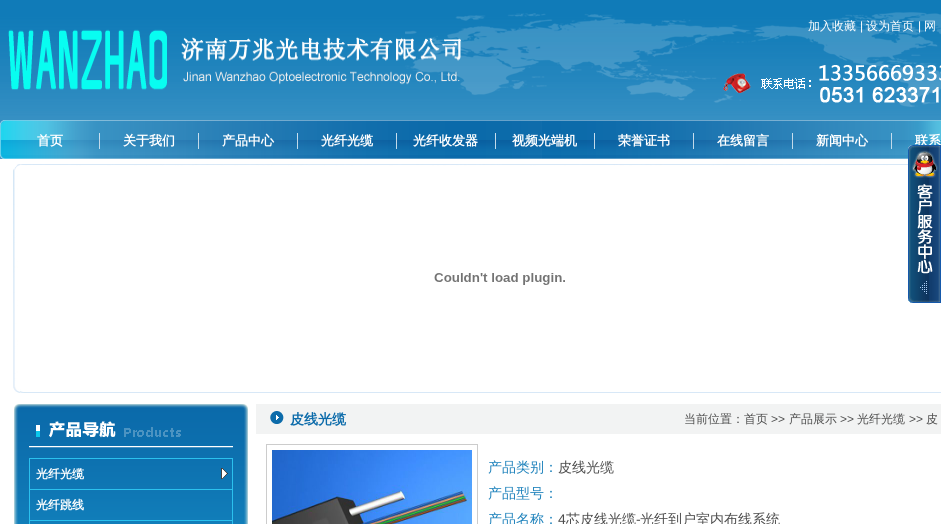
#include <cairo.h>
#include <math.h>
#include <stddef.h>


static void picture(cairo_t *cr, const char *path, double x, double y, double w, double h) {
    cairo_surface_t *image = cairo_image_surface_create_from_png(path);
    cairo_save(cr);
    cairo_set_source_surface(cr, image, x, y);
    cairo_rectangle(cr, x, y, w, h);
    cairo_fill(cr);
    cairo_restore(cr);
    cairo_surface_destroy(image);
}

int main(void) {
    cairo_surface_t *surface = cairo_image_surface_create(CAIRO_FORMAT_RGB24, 941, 524);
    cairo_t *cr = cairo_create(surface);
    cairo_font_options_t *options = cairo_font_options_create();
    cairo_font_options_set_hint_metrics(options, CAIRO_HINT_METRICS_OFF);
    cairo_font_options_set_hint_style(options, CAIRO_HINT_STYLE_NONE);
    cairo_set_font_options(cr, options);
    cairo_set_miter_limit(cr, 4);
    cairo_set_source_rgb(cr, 1, 1, 1);
    cairo_paint(cr);
    picture(cr, "img1.png", 0, 0, 941, 159);
    picture(cr, "img2.png", 405, 12, 536, 95);
    cairo_select_font_face(cr, "WenQuanYi Zen Hei Medium", CAIRO_FONT_SLANT_NORMAL, CAIRO_FONT_WEIGHT_NORMAL);
    cairo_set_font_size(cr, 12);
    cairo_set_source_rgb(cr, 1, 1, 1);
    cairo_move_to(cr, 808, 30);
    cairo_show_text(cr, "加入收藏");
    cairo_select_font_face(cr, "Liberation Sans", CAIRO_FONT_SLANT_NORMAL, CAIRO_FONT_WEIGHT_NORMAL);
    cairo_move_to(cr, 860, 30);
    cairo_show_text(cr, "|");
    cairo_select_font_face(cr, "WenQuanYi Zen Hei Medium", CAIRO_FONT_SLANT_NORMAL, CAIRO_FONT_WEIGHT_NORMAL);
    cairo_move_to(cr, 866, 30);
    cairo_show_text(cr, "设为首页");
    cairo_select_font_face(cr, "Liberation Sans", CAIRO_FONT_SLANT_NORMAL, CAIRO_FONT_WEIGHT_NORMAL);
    cairo_move_to(cr, 918, 30);
    cairo_show_text(cr, "|");
    cairo_select_font_face(cr, "WenQuanYi Zen Hei Medium", CAIRO_FONT_SLANT_NORMAL, CAIRO_FONT_WEIGHT_NORMAL);
    cairo_move_to(cr, 924, 30);
    cairo_show_text(cr, "网");
    picture(cr, "img3.png", 8, 29, 453, 61);
    picture(cr, "img4.png", 723, 65, 218, 38);
    picture(cr, "img5.png", 0, 120, 941, 39);
    cairo_select_font_face(cr, "WenQuanYi Zen Hei", CAIRO_FONT_SLANT_NORMAL, CAIRO_FONT_WEIGHT_BOLD);
    cairo_set_font_size(cr, 13);
    cairo_move_to(cr, 37, 145);
    cairo_show_text(cr, "首页");
    picture(cr, "img6.png", 99, 133, 1, 16);
    cairo_move_to(cr, 123, 145);
    cairo_show_text(cr, "关于我们");
    picture(cr, "img6.png", 198, 133, 1, 16);
    cairo_move_to(cr, 222, 145);
    cairo_show_text(cr, "产品中心");
    picture(cr, "img6.png", 297, 133, 1, 16);
    cairo_move_to(cr, 321, 145);
    cairo_show_text(cr, "光纤光缆");
    picture(cr, "img6.png", 396, 133, 1, 16);
    cairo_move_to(cr, 413, 145);
    cairo_show_text(cr, "光纤收发器");
    picture(cr, "img6.png", 495, 133, 1, 16);
    cairo_move_to(cr, 512, 145);
    cairo_show_text(cr, "视频光端机");
    picture(cr, "img6.png", 594, 133, 1, 16);
    cairo_move_to(cr, 618, 145);
    cairo_show_text(cr, "荣誉证书");
    picture(cr, "img6.png", 693, 133, 1, 16);
    cairo_move_to(cr, 717, 145);
    cairo_show_text(cr, "在线留言");
    picture(cr, "img6.png", 792, 133, 1, 16);
    cairo_move_to(cr, 816, 145);
    cairo_show_text(cr, "新闻中心");
    picture(cr, "img6.png", 891, 133, 1, 16);
    cairo_move_to(cr, 915, 145);
    cairo_show_text(cr, "联系");
    picture(cr, "img8.png", 13, 164, 928, 229);
    picture(cr, "img7.png", 908, 145, 33, 158);
    picture(cr, "img9.png", 434, 273, 131, 12);
    picture(cr, "img10.png", 14, 404, 234, 120);
    picture(cr, "img11.png", 29, 421, 204, 27);
    cairo_set_source_rgb(cr, 0.169, 0.757, 0.933);
    cairo_rectangle(cr, 29, 458, 204, 1);
    cairo_fill(cr);
    cairo_rectangle(cr, 232, 458, 1, 31);
    cairo_fill(cr);
    cairo_rectangle(cr, 29, 458, 1, 31);
    cairo_fill(cr);
    cairo_set_font_size(cr, 12);
    cairo_set_source_rgb(cr, 1, 1, 1);
    cairo_move_to(cr, 36, 478);
    cairo_show_text(cr, "光纤光缆");
    picture(cr, "img12.png", 221, 468, 7, 11);
    cairo_set_source_rgb(cr, 0.169, 0.757, 0.933);
    cairo_rectangle(cr, 29, 489, 204, 1);
    cairo_fill(cr);
    cairo_rectangle(cr, 232, 489, 1, 31);
    cairo_fill(cr);
    cairo_rectangle(cr, 29, 489, 1, 31);
    cairo_fill(cr);
    cairo_set_source_rgb(cr, 1, 1, 1);
    cairo_move_to(cr, 36, 509);
    cairo_show_text(cr, "光纤跳线");
    cairo_set_source_rgb(cr, 0.169, 0.757, 0.933);
    cairo_rectangle(cr, 29, 520, 204, 1);
    cairo_fill(cr);
    cairo_rectangle(cr, 232, 520, 1, 4);
    cairo_fill(cr);
    cairo_rectangle(cr, 29, 520, 1, 4);
    cairo_fill(cr);
    cairo_set_source_rgb(cr, 0.949, 0.953, 0.953);
    cairo_rectangle(cr, 256, 404, 685, 30);
    cairo_fill(cr);
    picture(cr, "img13.png", 270, 411, 14, 13);
    cairo_set_font_size(cr, 14);
    cairo_set_source_rgb(cr, 0.047, 0.42, 0.667);
    cairo_move_to(cr, 290, 424);
    cairo_show_text(cr, "皮线光缆");
    cairo_select_font_face(cr, "WenQuanYi Zen Hei Medium", CAIRO_FONT_SLANT_NORMAL, CAIRO_FONT_WEIGHT_NORMAL);
    cairo_set_font_size(cr, 12);
    cairo_set_source_rgb(cr, 0.302, 0.302, 0.302);
    cairo_move_to(cr, 684, 423);
    cairo_show_text(cr, "当前位置：首页");
    cairo_select_font_face(cr, "Liberation Sans", CAIRO_FONT_SLANT_NORMAL, CAIRO_FONT_WEIGHT_NORMAL);
    cairo_move_to(cr, 771, 423);
    cairo_show_text(cr, ">>");
    cairo_select_font_face(cr, "WenQuanYi Zen Hei Medium", CAIRO_FONT_SLANT_NORMAL, CAIRO_FONT_WEIGHT_NORMAL);
    cairo_move_to(cr, 789, 423);
    cairo_show_text(cr, "产品展示");
    cairo_select_font_face(cr, "Liberation Sans", CAIRO_FONT_SLANT_NORMAL, CAIRO_FONT_WEIGHT_NORMAL);
    cairo_move_to(cr, 840, 423);
    cairo_show_text(cr, ">>");
    cairo_select_font_face(cr, "WenQuanYi Zen Hei Medium", CAIRO_FONT_SLANT_NORMAL, CAIRO_FONT_WEIGHT_NORMAL);
    cairo_move_to(cr, 857, 423);
    cairo_show_text(cr, "光纤光缆");
    cairo_select_font_face(cr, "Liberation Sans", CAIRO_FONT_SLANT_NORMAL, CAIRO_FONT_WEIGHT_NORMAL);
    cairo_move_to(cr, 909, 423);
    cairo_show_text(cr, ">>");
    cairo_select_font_face(cr, "WenQuanYi Zen Hei Medium", CAIRO_FONT_SLANT_NORMAL, CAIRO_FONT_WEIGHT_NORMAL);
    cairo_move_to(cr, 926, 423);
    cairo_show_text(cr, "皮");
    cairo_rectangle(cr, 266.5, 444.5, 211, 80);
    cairo_set_source_rgb(cr, 0.8, 0.8, 0.8);
    cairo_set_line_width(cr, 1);
    cairo_stroke(cr);
    picture(cr, "img14.png", 272, 450, 200, 74);
    cairo_set_font_size(cr, 14);
    cairo_set_source_rgb(cr, 0.11, 0.506, 0.733);
    cairo_move_to(cr, 488, 472);
    cairo_show_text(cr, "产品类别：");
    cairo_set_source_rgb(cr, 0.302, 0.302, 0.302);
    cairo_move_to(cr, 558, 472);
    cairo_show_text(cr, "皮线光缆");
    cairo_set_source_rgb(cr, 0.11, 0.506, 0.733);
    cairo_move_to(cr, 488, 498);
    cairo_show_text(cr, "产品型号：");
    cairo_move_to(cr, 488, 524);
    cairo_show_text(cr, "产品名称：");
    cairo_select_font_face(cr, "Liberation Sans", CAIRO_FONT_SLANT_NORMAL, CAIRO_FONT_WEIGHT_NORMAL);
    cairo_set_source_rgb(cr, 0.302, 0.302, 0.302);
    cairo_move_to(cr, 558, 524);
    cairo_show_text(cr, "4");
    cairo_select_font_face(cr, "WenQuanYi Zen Hei Medium", CAIRO_FONT_SLANT_NORMAL, CAIRO_FONT_WEIGHT_NORMAL);
    cairo_move_to(cr, 566, 524);
    cairo_show_text(cr, "芯皮线光缆");
    cairo_select_font_face(cr, "Liberation Sans", CAIRO_FONT_SLANT_NORMAL, CAIRO_FONT_WEIGHT_NORMAL);
    cairo_move_to(cr, 636, 524);
    cairo_show_text(cr, "-");
    cairo_select_font_face(cr, "WenQuanYi Zen Hei Medium", CAIRO_FONT_SLANT_NORMAL, CAIRO_FONT_WEIGHT_NORMAL);
    cairo_move_to(cr, 640, 524);
    cairo_show_text(cr, "光纤到户室内布线系统");
    cairo_surface_write_to_png(surface, "page.png");
    cairo_font_options_destroy(options);
    cairo_destroy(cr);
    cairo_surface_destroy(surface);
    return 0;
}
